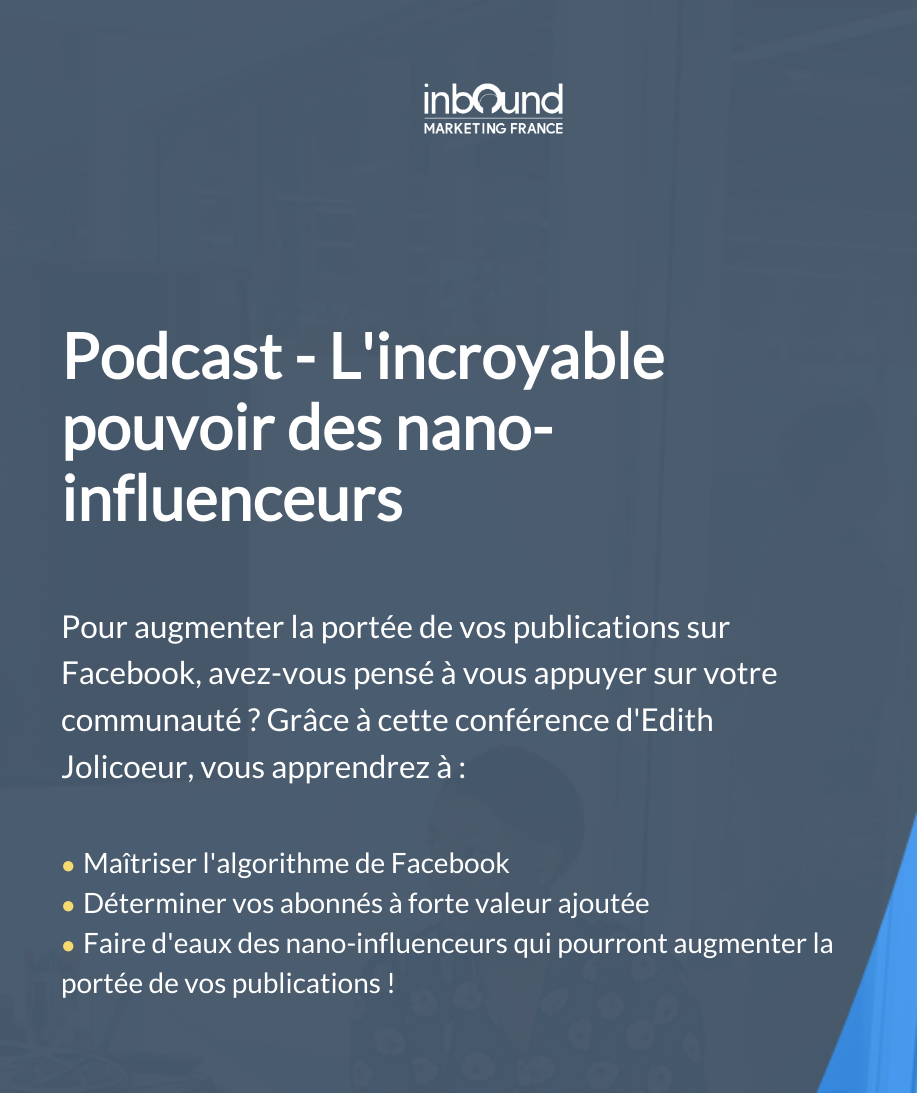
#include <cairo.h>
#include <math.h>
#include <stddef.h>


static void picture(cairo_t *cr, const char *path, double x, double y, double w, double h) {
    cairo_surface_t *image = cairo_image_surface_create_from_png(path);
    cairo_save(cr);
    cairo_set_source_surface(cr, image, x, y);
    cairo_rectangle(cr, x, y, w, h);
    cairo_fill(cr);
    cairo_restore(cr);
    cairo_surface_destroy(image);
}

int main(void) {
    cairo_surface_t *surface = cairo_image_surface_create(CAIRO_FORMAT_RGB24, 917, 1093);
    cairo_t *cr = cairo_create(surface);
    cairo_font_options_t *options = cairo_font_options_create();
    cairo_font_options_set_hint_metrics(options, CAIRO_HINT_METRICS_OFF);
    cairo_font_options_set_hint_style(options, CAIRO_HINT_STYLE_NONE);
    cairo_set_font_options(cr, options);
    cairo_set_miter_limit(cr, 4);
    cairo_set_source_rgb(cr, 1, 1, 1);
    cairo_paint(cr);
    picture(cr, "img1.png", 0, 0, 917, 1093);
    picture(cr, "img2.png", 424, 83, 139, 51);
    cairo_select_font_face(cr, "Lato", CAIRO_FONT_SLANT_NORMAL, CAIRO_FONT_WEIGHT_BOLD);
    cairo_set_font_size(cr, 63);
    cairo_set_source_rgb(cr, 1, 1, 1);
    cairo_move_to(cr, 61, 379);
    cairo_show_text(cr, "Podcast - L'incroyable");
    cairo_move_to(cr, 61, 450);
    cairo_show_text(cr, "pouvoir des nano-");
    cairo_move_to(cr, 61, 521);
    cairo_show_text(cr, "influenceurs");
    cairo_select_font_face(cr, "Lato", CAIRO_FONT_SLANT_NORMAL, CAIRO_FONT_WEIGHT_NORMAL);
    cairo_set_font_size(cr, 31.5);
    cairo_move_to(cr, 61, 638);
    cairo_show_text(cr, "Pour augmenter la portée de vos publications sur");
    cairo_move_to(cr, 61, 684);
    cairo_show_text(cr, "Facebook, avez-vous pensé à vous appuyer sur votre");
    cairo_move_to(cr, 61, 731);
    cairo_show_text(cr, "communauté ? Grâce à cette conférence d'Edith");
    cairo_move_to(cr, 61, 778);
    cairo_show_text(cr, "Jolicoeur, vous apprendrez à :");
    cairo_select_font_face(cr, "Liberation Sans", CAIRO_FONT_SLANT_NORMAL, CAIRO_FONT_WEIGHT_NORMAL);
    cairo_set_font_size(cr, 24);
    cairo_set_source_rgb(cr, 0.969, 0.851, 0.439);
    cairo_move_to(cr, 61, 873);
    cairo_show_text(cr, "●");
    cairo_select_font_face(cr, "Lato", CAIRO_FONT_SLANT_NORMAL, CAIRO_FONT_WEIGHT_NORMAL);
    cairo_set_font_size(cr, 28);
    cairo_set_source_rgb(cr, 1, 1, 1);
    cairo_move_to(cr, 83, 873);
    cairo_show_text(cr, "Maîtriser l'algorithme de Facebook");
    cairo_select_font_face(cr, "Liberation Sans", CAIRO_FONT_SLANT_NORMAL, CAIRO_FONT_WEIGHT_NORMAL);
    cairo_set_font_size(cr, 24);
    cairo_set_source_rgb(cr, 0.969, 0.851, 0.439);
    cairo_move_to(cr, 61, 913);
    cairo_show_text(cr, "●");
    cairo_select_font_face(cr, "Lato", CAIRO_FONT_SLANT_NORMAL, CAIRO_FONT_WEIGHT_NORMAL);
    cairo_set_font_size(cr, 28);
    cairo_set_source_rgb(cr, 1, 1, 1);
    cairo_move_to(cr, 83, 913);
    cairo_show_text(cr, "Déterminer vos abonnés à forte valeur ajoutée");
    cairo_select_font_face(cr, "Liberation Sans", CAIRO_FONT_SLANT_NORMAL, CAIRO_FONT_WEIGHT_NORMAL);
    cairo_set_font_size(cr, 24);
    cairo_set_source_rgb(cr, 0.969, 0.851, 0.439);
    cairo_move_to(cr, 61, 953);
    cairo_show_text(cr, "●");
    cairo_select_font_face(cr, "Lato", CAIRO_FONT_SLANT_NORMAL, CAIRO_FONT_WEIGHT_NORMAL);
    cairo_set_font_size(cr, 28);
    cairo_set_source_rgb(cr, 1, 1, 1);
    cairo_move_to(cr, 83, 953);
    cairo_show_text(cr, "Faire d'eaux des nano-influenceurs qui pourront augmenter la");
    cairo_move_to(cr, 61, 993);
    cairo_show_text(cr, "portée de vos publications !");
    cairo_surface_write_to_png(surface, "page.png");
    cairo_font_options_destroy(options);
    cairo_destroy(cr);
    cairo_surface_destroy(surface);
    return 0;
}
